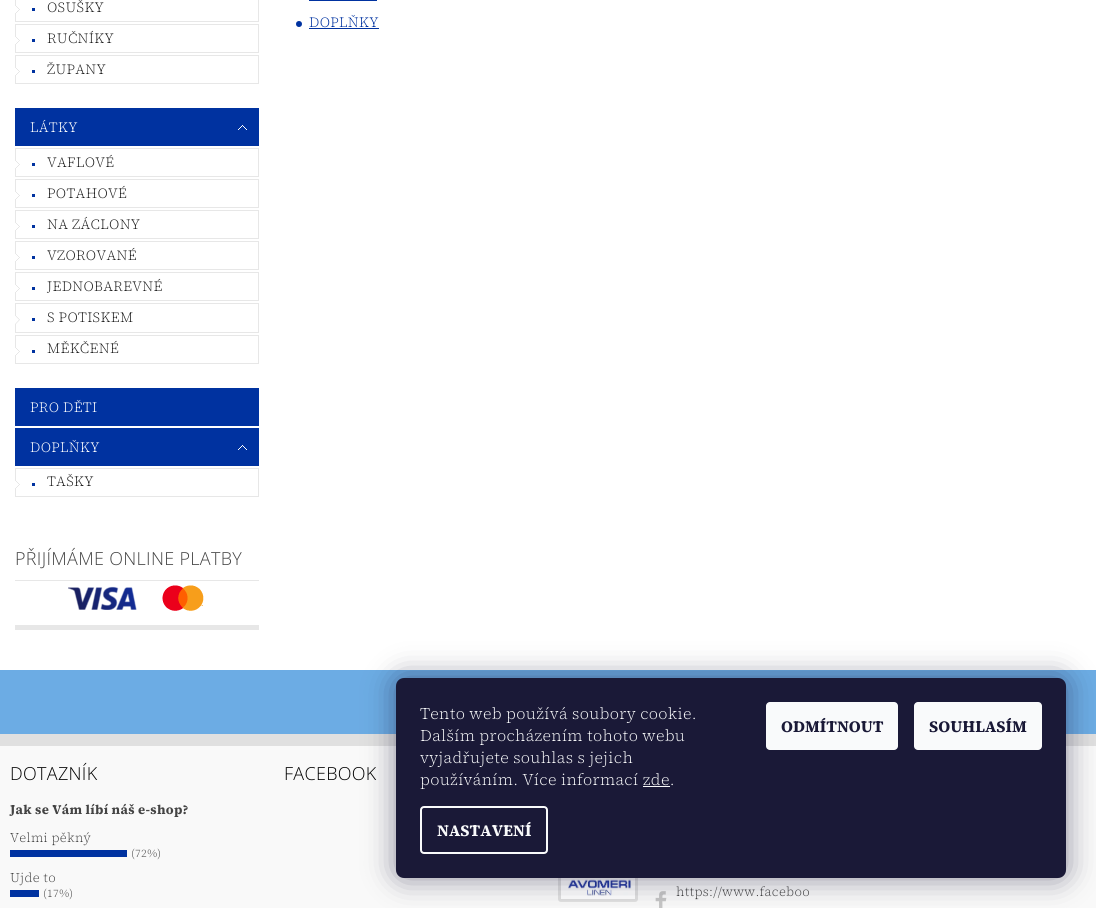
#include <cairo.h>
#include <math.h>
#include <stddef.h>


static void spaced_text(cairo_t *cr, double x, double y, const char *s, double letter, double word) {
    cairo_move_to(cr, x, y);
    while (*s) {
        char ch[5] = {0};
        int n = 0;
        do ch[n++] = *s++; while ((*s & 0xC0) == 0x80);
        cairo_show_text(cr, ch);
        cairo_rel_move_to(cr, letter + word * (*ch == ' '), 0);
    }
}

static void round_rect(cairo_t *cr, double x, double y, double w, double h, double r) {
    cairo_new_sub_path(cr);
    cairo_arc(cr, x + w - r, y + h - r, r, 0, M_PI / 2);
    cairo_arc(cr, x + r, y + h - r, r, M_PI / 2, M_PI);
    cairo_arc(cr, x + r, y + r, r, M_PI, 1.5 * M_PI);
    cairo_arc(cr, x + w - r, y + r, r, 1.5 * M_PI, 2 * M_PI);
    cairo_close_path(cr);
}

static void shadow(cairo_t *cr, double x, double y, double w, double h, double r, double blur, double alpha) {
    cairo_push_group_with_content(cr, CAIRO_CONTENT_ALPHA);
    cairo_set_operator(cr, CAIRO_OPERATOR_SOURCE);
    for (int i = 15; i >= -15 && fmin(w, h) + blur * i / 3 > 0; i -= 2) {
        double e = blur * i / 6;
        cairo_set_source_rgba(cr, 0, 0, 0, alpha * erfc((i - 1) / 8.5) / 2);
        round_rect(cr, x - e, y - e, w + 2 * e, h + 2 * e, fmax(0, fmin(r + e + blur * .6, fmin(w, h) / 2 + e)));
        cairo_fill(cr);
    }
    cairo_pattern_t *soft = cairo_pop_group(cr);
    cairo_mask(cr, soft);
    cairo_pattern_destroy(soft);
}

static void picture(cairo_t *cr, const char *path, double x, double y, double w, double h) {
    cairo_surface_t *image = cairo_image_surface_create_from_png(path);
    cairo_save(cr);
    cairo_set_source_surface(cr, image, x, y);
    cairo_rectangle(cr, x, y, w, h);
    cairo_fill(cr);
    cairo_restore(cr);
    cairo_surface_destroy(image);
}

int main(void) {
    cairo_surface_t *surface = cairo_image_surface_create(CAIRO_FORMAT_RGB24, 1096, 908);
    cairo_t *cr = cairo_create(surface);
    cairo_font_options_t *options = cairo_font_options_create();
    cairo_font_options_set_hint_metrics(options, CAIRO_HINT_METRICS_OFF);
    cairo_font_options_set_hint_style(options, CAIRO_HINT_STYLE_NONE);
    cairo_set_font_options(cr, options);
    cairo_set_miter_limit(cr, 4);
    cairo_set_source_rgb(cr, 0.424, 0.675, 0.894);
    cairo_paint(cr);
    cairo_set_source_rgb(cr, 1, 1, 1);
    cairo_rectangle(cr, 0, 0, 1096, 670);
    cairo_fill(cr);
    cairo_rectangle(cr, 15.5, -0.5, 243, 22);
    cairo_set_source_rgb(cr, 0.906, 0.906, 0.906);
    cairo_set_line_width(cr, 1);
    cairo_stroke(cr);
    picture(cr, "img1.png", 15, 6, 5, 7);
    cairo_set_source_rgb(cr, 0, 0.196, 0.627);
    cairo_rectangle(cr, 32, 8, 3, 3);
    cairo_fill(cr);
    cairo_select_font_face(cr, "Source Serif 4 Light", CAIRO_FONT_SLANT_NORMAL, CAIRO_FONT_WEIGHT_NORMAL);
    cairo_set_font_size(cr, 14);
    cairo_set_source_rgb(cr, 0.133, 0.133, 0.133);
    spaced_text(cr, 47, 12, "OSUŠKY", 0.3, 0);
    cairo_rectangle(cr, 15.5, 24.5, 243, 28);
    cairo_set_source_rgb(cr, 0.906, 0.906, 0.906);
    cairo_stroke(cr);
    picture(cr, "img1.png", 15, 37, 5, 7);
    cairo_set_source_rgb(cr, 0, 0.196, 0.627);
    cairo_rectangle(cr, 32, 39, 3, 3);
    cairo_fill(cr);
    cairo_set_source_rgb(cr, 0.133, 0.133, 0.133);
    spaced_text(cr, 47, 43, "RUČNÍKY", 0.3, 0);
    cairo_rectangle(cr, 15.5, 55.5, 243, 28);
    cairo_set_source_rgb(cr, 0.906, 0.906, 0.906);
    cairo_stroke(cr);
    picture(cr, "img1.png", 15, 68, 5, 7);
    cairo_set_source_rgb(cr, 0, 0.196, 0.627);
    cairo_rectangle(cr, 32, 70, 3, 3);
    cairo_fill(cr);
    cairo_set_source_rgb(cr, 0.133, 0.133, 0.133);
    spaced_text(cr, 47, 74, "ŽUPANY", 0.3, 0);
    cairo_set_source_rgb(cr, 0, 0.196, 0.627);
    cairo_rectangle(cr, 15, 108, 244, 38);
    cairo_fill(cr);
    picture(cr, "img2.png", 238, 125, 9, 5);
    cairo_set_source_rgb(cr, 1, 1, 1);
    spaced_text(cr, 30, 132, "LÁTKY", 0.3, 0);
    cairo_rectangle(cr, 15.5, 148.5, 243, 28);
    cairo_set_source_rgb(cr, 0.906, 0.906, 0.906);
    cairo_stroke(cr);
    picture(cr, "img1.png", 15, 161, 5, 7);
    cairo_set_source_rgb(cr, 0, 0.196, 0.627);
    cairo_rectangle(cr, 32, 163, 3, 3);
    cairo_fill(cr);
    cairo_set_source_rgb(cr, 0.133, 0.133, 0.133);
    spaced_text(cr, 47, 167, "VAFLOVÉ", 0.3, 0);
    cairo_rectangle(cr, 15.5, 179.5, 243, 28);
    cairo_set_source_rgb(cr, 0.906, 0.906, 0.906);
    cairo_stroke(cr);
    picture(cr, "img1.png", 15, 192, 5, 7);
    cairo_set_source_rgb(cr, 0, 0.196, 0.627);
    cairo_rectangle(cr, 32, 194, 3, 3);
    cairo_fill(cr);
    cairo_set_source_rgb(cr, 0.133, 0.133, 0.133);
    spaced_text(cr, 47, 198, "POTAHOVÉ", 0.3, 0);
    cairo_rectangle(cr, 15.5, 210.5, 243, 28);
    cairo_set_source_rgb(cr, 0.906, 0.906, 0.906);
    cairo_stroke(cr);
    picture(cr, "img1.png", 15, 223, 5, 7);
    cairo_set_source_rgb(cr, 0, 0.196, 0.627);
    cairo_rectangle(cr, 32, 225, 3, 3);
    cairo_fill(cr);
    cairo_set_source_rgb(cr, 0.133, 0.133, 0.133);
    spaced_text(cr, 47, 229, "NA ZÁCLONY", 0.3, 0);
    cairo_rectangle(cr, 15.5, 241.5, 243, 28);
    cairo_set_source_rgb(cr, 0.906, 0.906, 0.906);
    cairo_stroke(cr);
    picture(cr, "img1.png", 15, 254, 5, 7);
    cairo_set_source_rgb(cr, 0, 0.196, 0.627);
    cairo_rectangle(cr, 32, 256, 3, 3);
    cairo_fill(cr);
    cairo_set_source_rgb(cr, 0.133, 0.133, 0.133);
    spaced_text(cr, 47, 260, "VZOROVANÉ", 0.3, 0);
    cairo_rectangle(cr, 15.5, 272.5, 243, 28);
    cairo_set_source_rgb(cr, 0.906, 0.906, 0.906);
    cairo_stroke(cr);
    picture(cr, "img1.png", 15, 285, 5, 7);
    cairo_set_source_rgb(cr, 0, 0.196, 0.627);
    cairo_rectangle(cr, 32, 287, 3, 3);
    cairo_fill(cr);
    cairo_set_source_rgb(cr, 0.133, 0.133, 0.133);
    spaced_text(cr, 47, 291, "JEDNOBAREVNÉ", 0.3, 0);
    cairo_rectangle(cr, 15.5, 303.5, 243, 29);
    cairo_set_source_rgb(cr, 0.906, 0.906, 0.906);
    cairo_stroke(cr);
    picture(cr, "img3.png", 15, 316, 5, 8);
    cairo_set_source_rgb(cr, 0, 0.196, 0.627);
    cairo_rectangle(cr, 32, 318, 3, 3);
    cairo_fill(cr);
    cairo_set_source_rgb(cr, 0.133, 0.133, 0.133);
    spaced_text(cr, 47, 322, "S POTISKEM", 0.3, 0);
    cairo_rectangle(cr, 15.5, 335.5, 243, 28);
    cairo_set_source_rgb(cr, 0.906, 0.906, 0.906);
    cairo_stroke(cr);
    picture(cr, "img1.png", 15, 348, 5, 7);
    cairo_set_source_rgb(cr, 0, 0.196, 0.627);
    cairo_rectangle(cr, 32, 350, 3, 3);
    cairo_fill(cr);
    cairo_set_source_rgb(cr, 0.133, 0.133, 0.133);
    spaced_text(cr, 47, 353, "MĚKČENÉ", 0.3, 0);
    cairo_set_source_rgb(cr, 0, 0.196, 0.627);
    cairo_rectangle(cr, 15, 388, 244, 38);
    cairo_fill(cr);
    cairo_set_source_rgb(cr, 1, 1, 1);
    spaced_text(cr, 30, 412, "PRO DĚTI", 0.3, 0);
    cairo_set_source_rgb(cr, 0, 0.196, 0.627);
    cairo_rectangle(cr, 15, 428, 244, 38);
    cairo_fill(cr);
    picture(cr, "img2.png", 238, 445, 9, 5);
    cairo_set_source_rgb(cr, 1, 1, 1);
    spaced_text(cr, 30, 452, "DOPLŇKY", 0.3, 0);
    cairo_rectangle(cr, 15.5, 468.5, 243, 28);
    cairo_set_source_rgb(cr, 0.906, 0.906, 0.906);
    cairo_stroke(cr);
    picture(cr, "img1.png", 15, 481, 5, 7);
    cairo_set_source_rgb(cr, 0, 0.196, 0.627);
    cairo_rectangle(cr, 32, 483, 3, 3);
    cairo_fill(cr);
    cairo_set_source_rgb(cr, 0.133, 0.133, 0.133);
    spaced_text(cr, 47, 486, "TAŠKY", 0.3, 0);
    cairo_set_source_rgb(cr, 0.906, 0.906, 0.906);
    cairo_rectangle(cr, 15, 625, 244, 5);
    cairo_fill(cr);
    cairo_rectangle(cr, 15, 580, 244, 1);
    cairo_fill(cr);
    cairo_select_font_face(cr, "Open Sans Light", CAIRO_FONT_SLANT_NORMAL, CAIRO_FONT_WEIGHT_NORMAL);
    cairo_set_font_size(cr, 18);
    cairo_set_source_rgb(cr, 0.267, 0.267, 0.267);
    spaced_text(cr, 15, 565, "PŘIJÍMÁME ONLINE PLATBY", 0.3, 0);
    picture(cr, "img4.png", 68, 585, 136, 26);
    cairo_set_source_rgb(cr, 0, 0.196, 0.627);
    cairo_rectangle(cr, 309, 0, 68, 1);
    cairo_fill(cr);
    cairo_arc(cr, 299, 24, 3, 0, 2 * M_PI);
    cairo_fill(cr);
    cairo_select_font_face(cr, "Source Serif 4 Light", CAIRO_FONT_SLANT_NORMAL, CAIRO_FONT_WEIGHT_NORMAL);
    cairo_set_font_size(cr, 14);
    spaced_text(cr, 309, 27, "DOPLŇKY", 0.3, 0);
    cairo_rectangle(cr, 309, 28, 70, 1);
    cairo_fill(cr);
    cairo_set_source_rgb(cr, 0.973, 0.973, 0.973);
    cairo_rectangle(cr, 0, 746, 1096, 162);
    cairo_fill(cr);
    cairo_set_source_rgb(cr, 0.878, 0.878, 0.878);
    cairo_rectangle(cr, 0, 734, 1096, 12);
    cairo_fill(cr);
    cairo_select_font_face(cr, "Open Sans Light", CAIRO_FONT_SLANT_NORMAL, CAIRO_FONT_WEIGHT_NORMAL);
    cairo_set_font_size(cr, 18);
    cairo_set_source_rgb(cr, 0, 0, 0);
    spaced_text(cr, 10, 780, "DOTAZNÍK", 0.3, 0);
    cairo_select_font_face(cr, "Source Serif 4", CAIRO_FONT_SLANT_NORMAL, CAIRO_FONT_WEIGHT_BOLD);
    cairo_set_font_size(cr, 13);
    cairo_set_source_rgb(cr, 0.267, 0.267, 0.267);
    spaced_text(cr, 10, 814, "Jak se Vám líbí náš e-shop?", 0.3, 0);
    cairo_select_font_face(cr, "Source Serif 4 Light", CAIRO_FONT_SLANT_NORMAL, CAIRO_FONT_WEIGHT_NORMAL);
    spaced_text(cr, 10, 842, "Velmi pěkný", 0.3, 0);
    cairo_set_source_rgb(cr, 0, 0.196, 0.627);
    cairo_rectangle(cr, 10, 850, 117, 7);
    cairo_fill(cr);
    cairo_set_font_size(cr, 11);
    cairo_set_source_rgb(cr, 0.267, 0.267, 0.267);
    spaced_text(cr, 131, 857, "(72%)", 0.3, 0);
    cairo_set_font_size(cr, 13);
    spaced_text(cr, 10, 882, "Ujde to", 0.3, 0);
    cairo_set_source_rgb(cr, 0, 0.196, 0.627);
    cairo_rectangle(cr, 10, 890, 29, 7);
    cairo_fill(cr);
    cairo_set_font_size(cr, 11);
    cairo_set_source_rgb(cr, 0.267, 0.267, 0.267);
    spaced_text(cr, 43, 897, "(17%)", 0.3, 0);
    cairo_select_font_face(cr, "Open Sans Light", CAIRO_FONT_SLANT_NORMAL, CAIRO_FONT_WEIGHT_NORMAL);
    cairo_set_font_size(cr, 18);
    cairo_set_source_rgb(cr, 0, 0, 0);
    spaced_text(cr, 284, 780, "FACEBOOK", 0.3, 0);
    round_rect(cr, 559.5, 809.5, 77, 91, 1.5);
    cairo_set_source_rgb(cr, 0.878, 0.878, 0.878);
    cairo_set_line_width(cr, 3);
    cairo_stroke(cr);
    picture(cr, "img5.png", 561, 878, 74, 21);
    picture(cr, "img6.png", 655, 891, 12, 17);
    cairo_select_font_face(cr, "Source Serif 4 Light", CAIRO_FONT_SLANT_NORMAL, CAIRO_FONT_WEIGHT_NORMAL);
    cairo_set_font_size(cr, 13);
    cairo_set_source_rgb(cr, 0.267, 0.267, 0.267);
    spaced_text(cr, 676, 896, "https://www.faceboo", 0.3, 0);
    cairo_set_source_rgb(cr, 0.106, 0.098, 0.224);
    shadow(cr, 396, 678, 670, 200, 8, 15, 0.5);
    cairo_set_source_rgb(cr, 0.102, 0.098, 0.216);
    round_rect(cr, 396, 678, 670, 200, 8);
    cairo_fill(cr);
    cairo_set_font_size(cr, 16);
    cairo_set_source_rgb(cr, 0.973, 0.98, 0.984);
    spaced_text(cr, 420, 719, "Tento web používá soubory cookie.", 0.3, 0);
    spaced_text(cr, 420, 741, "Dalším procházením tohoto webu", 0.3, 0);
    spaced_text(cr, 420, 763, "vyjadřujete souhlas s jejich", 0.3, 0);
    spaced_text(cr, 420, 785, "používáním. Více informací zde.", 0.3, 0);
    cairo_rectangle(cr, 643, 786, 27, 1);
    cairo_fill(cr);
    round_rect(cr, 421, 807, 126, 46, 3);
    cairo_set_line_width(cr, 2);
    cairo_stroke(cr);
    cairo_select_font_face(cr, "Source Serif 4", CAIRO_FONT_SLANT_NORMAL, CAIRO_FONT_WEIGHT_BOLD);
    cairo_move_to(cr, 437, 836);
    cairo_show_text(cr, "NASTAVENÍ");
    round_rect(cr, 766, 702, 132, 48, 4);
    cairo_fill(cr);
    cairo_set_source_rgb(cr, 0.102, 0.098, 0.216);
    cairo_move_to(cr, 781, 732);
    cairo_show_text(cr, "ODMÍTNOUT");
    cairo_set_source_rgb(cr, 0.973, 0.98, 0.984);
    round_rect(cr, 914, 702, 128, 48, 4);
    cairo_fill(cr);
    cairo_set_source_rgb(cr, 0.102, 0.098, 0.216);
    cairo_move_to(cr, 929, 732);
    cairo_show_text(cr, "SOUHLASÍM");
    cairo_surface_write_to_png(surface, "page.png");
    cairo_font_options_destroy(options);
    cairo_destroy(cr);
    cairo_surface_destroy(surface);
    return 0;
}
